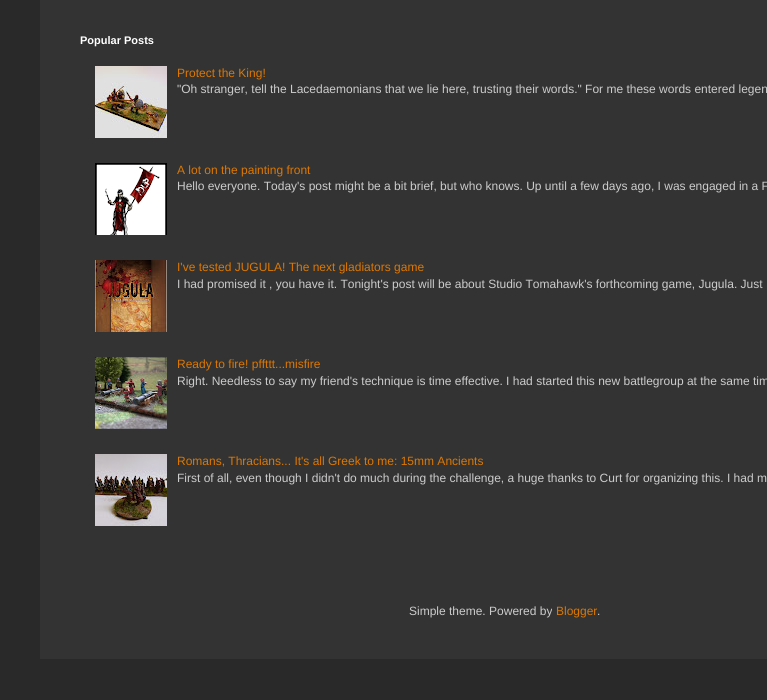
#include <cairo.h>
#include <math.h>
#include <stddef.h>


static void picture(cairo_t *cr, const char *path, double x, double y, double w, double h) {
    cairo_surface_t *image = cairo_image_surface_create_from_png(path);
    cairo_save(cr);
    cairo_set_source_surface(cr, image, x, y);
    cairo_rectangle(cr, x, y, w, h);
    cairo_fill(cr);
    cairo_restore(cr);
    cairo_surface_destroy(image);
}

int main(void) {
    cairo_surface_t *surface = cairo_image_surface_create(CAIRO_FORMAT_RGB24, 767, 700);
    cairo_t *cr = cairo_create(surface);
    cairo_font_options_t *options = cairo_font_options_create();
    cairo_font_options_set_hint_metrics(options, CAIRO_HINT_METRICS_OFF);
    cairo_font_options_set_hint_style(options, CAIRO_HINT_STYLE_NONE);
    cairo_set_font_options(cr, options);
    cairo_set_miter_limit(cr, 4);
    cairo_set_source_rgb(cr, 0.161, 0.161, 0.161);
    cairo_paint(cr);
    cairo_set_source_rgb(cr, 0.2, 0.2, 0.2);
    cairo_rectangle(cr, 40, 0, 727, 659);
    cairo_fill(cr);
    cairo_select_font_face(cr, "Liberation Sans", CAIRO_FONT_SLANT_NORMAL, CAIRO_FONT_WEIGHT_BOLD);
    cairo_set_font_size(cr, 11);
    cairo_set_source_rgb(cr, 1, 1, 1);
    cairo_move_to(cr, 80, 44);
    cairo_show_text(cr, "Popular Posts");
    picture(cr, "img1.png", 95, 66, 72, 72);
    cairo_select_font_face(cr, "Liberation Sans", CAIRO_FONT_SLANT_NORMAL, CAIRO_FONT_WEIGHT_NORMAL);
    cairo_set_font_size(cr, 12);
    cairo_set_source_rgb(cr, 0.867, 0.467, 0);
    cairo_move_to(cr, 177, 77);
    cairo_show_text(cr, "Protect the King!");
    cairo_set_source_rgb(cr, 0.8, 0.8, 0.8);
    cairo_move_to(cr, 177, 93);
    cairo_show_text(cr, "\"Oh stranger, tell the Lacedaemonians that we lie here, trusting their words.\" For me these words entered legen");
    picture(cr, "img2.png", 95, 163, 72, 72);
    cairo_set_source_rgb(cr, 0.867, 0.467, 0);
    cairo_move_to(cr, 177, 174);
    cairo_show_text(cr, "A lot on the painting front");
    cairo_set_source_rgb(cr, 0.8, 0.8, 0.8);
    cairo_move_to(cr, 177, 190);
    cairo_show_text(cr, "Hello everyone. Today's post might be a bit brief, but who knows. Up until a few days ago, I was engaged in a F");
    picture(cr, "img3.png", 95, 260, 72, 72);
    cairo_set_source_rgb(cr, 0.867, 0.467, 0);
    cairo_move_to(cr, 177, 271);
    cairo_show_text(cr, "I've tested JUGULA! The next gladiators game");
    cairo_set_source_rgb(cr, 0.8, 0.8, 0.8);
    cairo_move_to(cr, 177, 288);
    cairo_show_text(cr, "I had promised it , you have it. Tonight's post will be about Studio Tomahawk's forthcoming game, Jugula. Just");
    picture(cr, "img4.png", 95, 357, 72, 72);
    cairo_set_source_rgb(cr, 0.867, 0.467, 0);
    cairo_move_to(cr, 177, 368);
    cairo_show_text(cr, "Ready to fire! pffttt...misfire");
    cairo_set_source_rgb(cr, 0.8, 0.8, 0.8);
    cairo_move_to(cr, 177, 385);
    cairo_show_text(cr, "Right. Needless to say my friend's technique is time effective. I had started this new battlegroup at the same tim");
    picture(cr, "img5.png", 95, 454, 72, 72);
    cairo_set_source_rgb(cr, 0.867, 0.467, 0);
    cairo_move_to(cr, 177, 465);
    cairo_show_text(cr, "Romans, Thracians... It's all Greek to me: 15mm Ancients");
    cairo_set_source_rgb(cr, 0.8, 0.8, 0.8);
    cairo_move_to(cr, 177, 482);
    cairo_show_text(cr, "First of all, even though I didn't do much during the challenge, a huge thanks to Curt for organizing this. I had m");
    cairo_move_to(cr, 409, 615);
    cairo_show_text(cr, "Simple theme. Powered by");
    cairo_set_source_rgb(cr, 0.867, 0.467, 0);
    cairo_move_to(cr, 556, 615);
    cairo_show_text(cr, "Blogger");
    cairo_set_source_rgb(cr, 0.8, 0.8, 0.8);
    cairo_move_to(cr, 597, 615);
    cairo_show_text(cr, ".");
    cairo_surface_write_to_png(surface, "page.png");
    cairo_font_options_destroy(options);
    cairo_destroy(cr);
    cairo_surface_destroy(surface);
    return 0;
}
